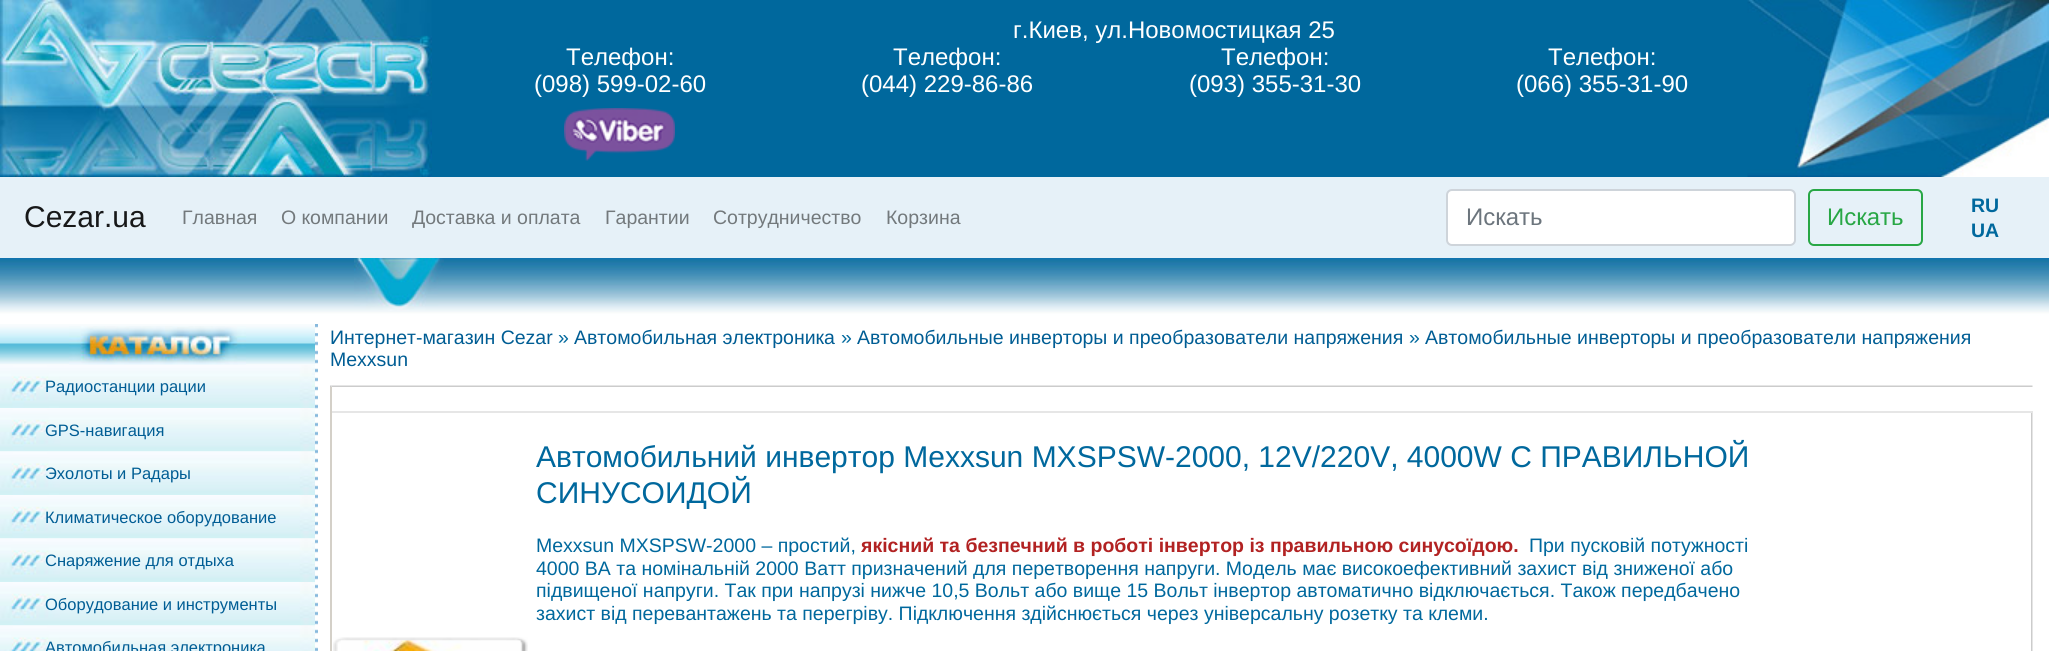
#include <cairo.h>
#include <math.h>
#include <stddef.h>


static void round_rect(cairo_t *cr, double x, double y, double w, double h, double r) {
    cairo_new_sub_path(cr);
    cairo_arc(cr, x + w - r, y + h - r, r, 0, M_PI / 2);
    cairo_arc(cr, x + r, y + h - r, r, M_PI / 2, M_PI);
    cairo_arc(cr, x + r, y + r, r, M_PI, 1.5 * M_PI);
    cairo_arc(cr, x + w - r, y + r, r, 1.5 * M_PI, 2 * M_PI);
    cairo_close_path(cr);
}

static void picture(cairo_t *cr, const char *path, double x, double y, double w, double h) {
    cairo_surface_t *image = cairo_image_surface_create_from_png(path);
    cairo_save(cr);
    cairo_set_source_surface(cr, image, x, y);
    cairo_rectangle(cr, x, y, w, h);
    cairo_fill(cr);
    cairo_restore(cr);
    cairo_surface_destroy(image);
}

int main(void) {
    cairo_surface_t *surface = cairo_image_surface_create(CAIRO_FORMAT_RGB24, 2049, 651);
    cairo_t *cr = cairo_create(surface);
    cairo_font_options_t *options = cairo_font_options_create();
    cairo_font_options_set_hint_metrics(options, CAIRO_HINT_METRICS_OFF);
    cairo_font_options_set_hint_style(options, CAIRO_HINT_STYLE_NONE);
    cairo_set_font_options(cr, options);
    cairo_set_miter_limit(cr, 4);
    cairo_set_source_rgb(cr, 1, 1, 1);
    cairo_paint(cr);
    cairo_set_source_rgb(cr, 0, 0.408, 0.616);
    cairo_rectangle(cr, 432, 0, 1316, 177);
    cairo_fill(cr);
    picture(cr, "img1.png", 1747, 0, 302, 177);
    picture(cr, "img2.png", 0, 0, 432, 177);
    cairo_select_font_face(cr, "Liberation Sans", CAIRO_FONT_SLANT_NORMAL, CAIRO_FONT_WEIGHT_NORMAL);
    cairo_set_font_size(cr, 24);
    cairo_set_source_rgb(cr, 1, 1, 1);
    cairo_move_to(cr, 1013, 38);
    cairo_show_text(cr, "г.Киев, ул.Новомостицкая 25");
    cairo_move_to(cr, 566, 65);
    cairo_show_text(cr, "Телефон:");
    cairo_move_to(cr, 534, 92);
    cairo_show_text(cr, "(098) 599-02-60");
    picture(cr, "img3.png", 564, 108, 111, 53);
    cairo_move_to(cr, 893, 65);
    cairo_show_text(cr, "Телефон:");
    cairo_move_to(cr, 861, 92);
    cairo_show_text(cr, "(044) 229-86-86");
    cairo_move_to(cr, 1221, 65);
    cairo_show_text(cr, "Телефон:");
    cairo_move_to(cr, 1189, 92);
    cairo_show_text(cr, "(093) 355-31-30");
    cairo_move_to(cr, 1548, 65);
    cairo_show_text(cr, "Телефон:");
    cairo_move_to(cr, 1516, 92);
    cairo_show_text(cr, "(066) 355-31-90");
    cairo_set_source_rgb(cr, 0.902, 0.945, 0.969);
    cairo_rectangle(cr, 0, 177, 2049, 81);
    cairo_fill(cr);
    cairo_set_font_size(cr, 30);
    cairo_set_source_rgb(cr, 0.09, 0.094, 0.098);
    cairo_move_to(cr, 24, 227);
    cairo_show_text(cr, "Cezar.ua");
    cairo_set_font_size(cr, 19.5);
    cairo_set_source_rgb(cr, 0.451, 0.475, 0.486);
    cairo_move_to(cr, 182, 224);
    cairo_show_text(cr, "Главная");
    cairo_move_to(cr, 281, 224);
    cairo_show_text(cr, "О компании");
    cairo_move_to(cr, 412, 224);
    cairo_show_text(cr, "Доставка и оплата");
    cairo_move_to(cr, 605, 224);
    cairo_show_text(cr, "Гарантии");
    cairo_move_to(cr, 713, 224);
    cairo_show_text(cr, "Сотрудничество");
    cairo_move_to(cr, 886, 224);
    cairo_show_text(cr, "Корзина");
    cairo_set_source_rgb(cr, 1, 1, 1);
    round_rect(cr, 1447, 190, 348, 55, 5);
    cairo_fill_preserve(cr);
    cairo_set_source_rgb(cr, 0.808, 0.831, 0.855);
    cairo_stroke(cr);
    cairo_set_font_size(cr, 24);
    cairo_set_source_rgb(cr, 0.424, 0.459, 0.49);
    cairo_move_to(cr, 1466, 225);
    cairo_show_text(cr, "Искать");
    round_rect(cr, 1809, 190, 113, 55, 5);
    cairo_set_source_rgb(cr, 0.157, 0.655, 0.271);
    cairo_stroke(cr);
    cairo_move_to(cr, 1827, 225);
    cairo_show_text(cr, "Искать");
    cairo_select_font_face(cr, "Liberation Sans", CAIRO_FONT_SLANT_NORMAL, CAIRO_FONT_WEIGHT_BOLD);
    cairo_set_font_size(cr, 19.5);
    cairo_set_source_rgb(cr, 0, 0.408, 0.616);
    cairo_move_to(cr, 1971, 212);
    cairo_show_text(cr, "RU");
    cairo_move_to(cr, 1971, 237);
    cairo_show_text(cr, "UA");
    picture(cr, "img4.png", 0, 258, 2049, 66);
    picture(cr, "img5.png", 354, 258, 90, 53);
    picture(cr, "img6.png", 0, 324, 315, 41);
    picture(cr, "img7.png", 69, 326, 177, 39);
    picture(cr, "img8.png", 0, 365, 315, 43);
    cairo_select_font_face(cr, "Liberation Sans", CAIRO_FONT_SLANT_NORMAL, CAIRO_FONT_WEIGHT_NORMAL);
    cairo_set_font_size(cr, 16.5);
    cairo_set_source_rgb(cr, 0, 0.365, 0.58);
    cairo_move_to(cr, 45, 392);
    cairo_show_text(cr, "Радиостанции рации");
    picture(cr, "img9.png", 0, 408, 315, 44);
    cairo_move_to(cr, 45, 436);
    cairo_show_text(cr, "GPS-навигация");
    picture(cr, "img10.png", 0, 451, 315, 44);
    cairo_move_to(cr, 45, 479);
    cairo_show_text(cr, "Эхолоты и Радары");
    picture(cr, "img9.png", 0, 495, 315, 44);
    cairo_move_to(cr, 45, 523);
    cairo_show_text(cr, "Климатическое оборудование");
    picture(cr, "img10.png", 0, 538, 315, 44);
    cairo_move_to(cr, 45, 566);
    cairo_show_text(cr, "Снаряжение для отдыха");
    picture(cr, "img9.png", 0, 582, 315, 44);
    cairo_move_to(cr, 45, 610);
    cairo_show_text(cr, "Оборудование и инструменты");
    picture(cr, "img11.png", 0, 625, 315, 26);
    cairo_move_to(cr, 45, 653);
    cairo_show_text(cr, "Автомобильная электроника");
    picture(cr, "img12.png", 315, 333, 3, 318);
    picture(cr, "img13.png", 315, 324, 3, 9);
    cairo_set_font_size(cr, 19.5);
    cairo_move_to(cr, 330, 344);
    cairo_show_text(cr, "Интернет-магазин Cezar");
    cairo_set_source_rgb(cr, 0, 0.408, 0.616);
    cairo_move_to(cr, 558, 344);
    cairo_show_text(cr, "»");
    cairo_set_source_rgb(cr, 0, 0.365, 0.58);
    cairo_move_to(cr, 574, 344);
    cairo_show_text(cr, "Автомобильная электроника");
    cairo_set_source_rgb(cr, 0, 0.408, 0.616);
    cairo_move_to(cr, 841, 344);
    cairo_show_text(cr, "»");
    cairo_set_source_rgb(cr, 0, 0.365, 0.58);
    cairo_move_to(cr, 857, 344);
    cairo_show_text(cr, "Автомобильные инверторы и преобразователи напряжения");
    cairo_set_source_rgb(cr, 0, 0.408, 0.616);
    cairo_move_to(cr, 1409, 344);
    cairo_show_text(cr, "»");
    cairo_set_source_rgb(cr, 0, 0.365, 0.58);
    cairo_move_to(cr, 1425, 344);
    cairo_show_text(cr, "Автомобильные инверторы и преобразователи напряжения");
    cairo_move_to(cr, 330, 366);
    cairo_show_text(cr, "Mexxsun");
    picture(cr, "img15.png", 331, 385, 1702, 2);
    picture(cr, "img14.png", 330, 385, 2, 2);
    cairo_set_source_rgb(cr, 0.831, 0.816, 0.784);
    cairo_rectangle(cr, 330, 387, 2, 264);
    cairo_fill(cr);
    picture(cr, "img16.png", 2031, 413, 2, 238);
    cairo_set_source_rgb(cr, 0.902, 0.902, 0.902);
    cairo_rectangle(cr, 332, 411, 1701, 2);
    cairo_fill(cr);
    cairo_set_font_size(cr, 30);
    cairo_set_source_rgb(cr, 0, 0.408, 0.616);
    cairo_move_to(cr, 536, 467);
    cairo_show_text(cr, "Автомобильний инвертор Mexxsun MXSPSW-2000, 12V/220V, 4000W С ПРАВИЛЬНОЙ");
    cairo_move_to(cr, 536, 503);
    cairo_show_text(cr, "СИНУСОИДОЙ");
    cairo_set_font_size(cr, 19.5);
    cairo_move_to(cr, 536, 552);
    cairo_show_text(cr, "Mexxsun MXSPSW-2000 – простий,");
    cairo_select_font_face(cr, "Liberation Sans", CAIRO_FONT_SLANT_NORMAL, CAIRO_FONT_WEIGHT_BOLD);
    cairo_set_source_rgb(cr, 0.698, 0.133, 0.133);
    cairo_move_to(cr, 861, 552);
    cairo_show_text(cr, "якісний та безпечний в роботі інвертор із правильною синусоїдою.");
    cairo_select_font_face(cr, "Liberation Sans", CAIRO_FONT_SLANT_NORMAL, CAIRO_FONT_WEIGHT_NORMAL);
    cairo_set_source_rgb(cr, 0, 0.408, 0.616);
    cairo_move_to(cr, 1529, 552);
    cairo_show_text(cr, "При пусковій потужності");
    cairo_move_to(cr, 536, 575);
    cairo_show_text(cr, "4000 ВА та номінальній 2000 Ватт призначений для перетворення напруги. Модель має високоефективний захист від зниженої або");
    cairo_move_to(cr, 536, 597);
    cairo_show_text(cr, "підвищеної напруги. Так при напрузі нижче 10,5 Вольт або вище 15 Вольт інвертор автоматично відключається. Також передбачено");
    cairo_move_to(cr, 536, 620);
    cairo_show_text(cr, "захист від перевантажень та перегріву. Підключення здійснюється через універсальну розетку та клеми.");
    picture(cr, "img17.png", 333, 637, 195, 14);
    picture(cr, "img18.png", 341, 640, 180, 11);
    cairo_surface_write_to_png(surface, "page.png");
    cairo_font_options_destroy(options);
    cairo_destroy(cr);
    cairo_surface_destroy(surface);
    return 0;
}
